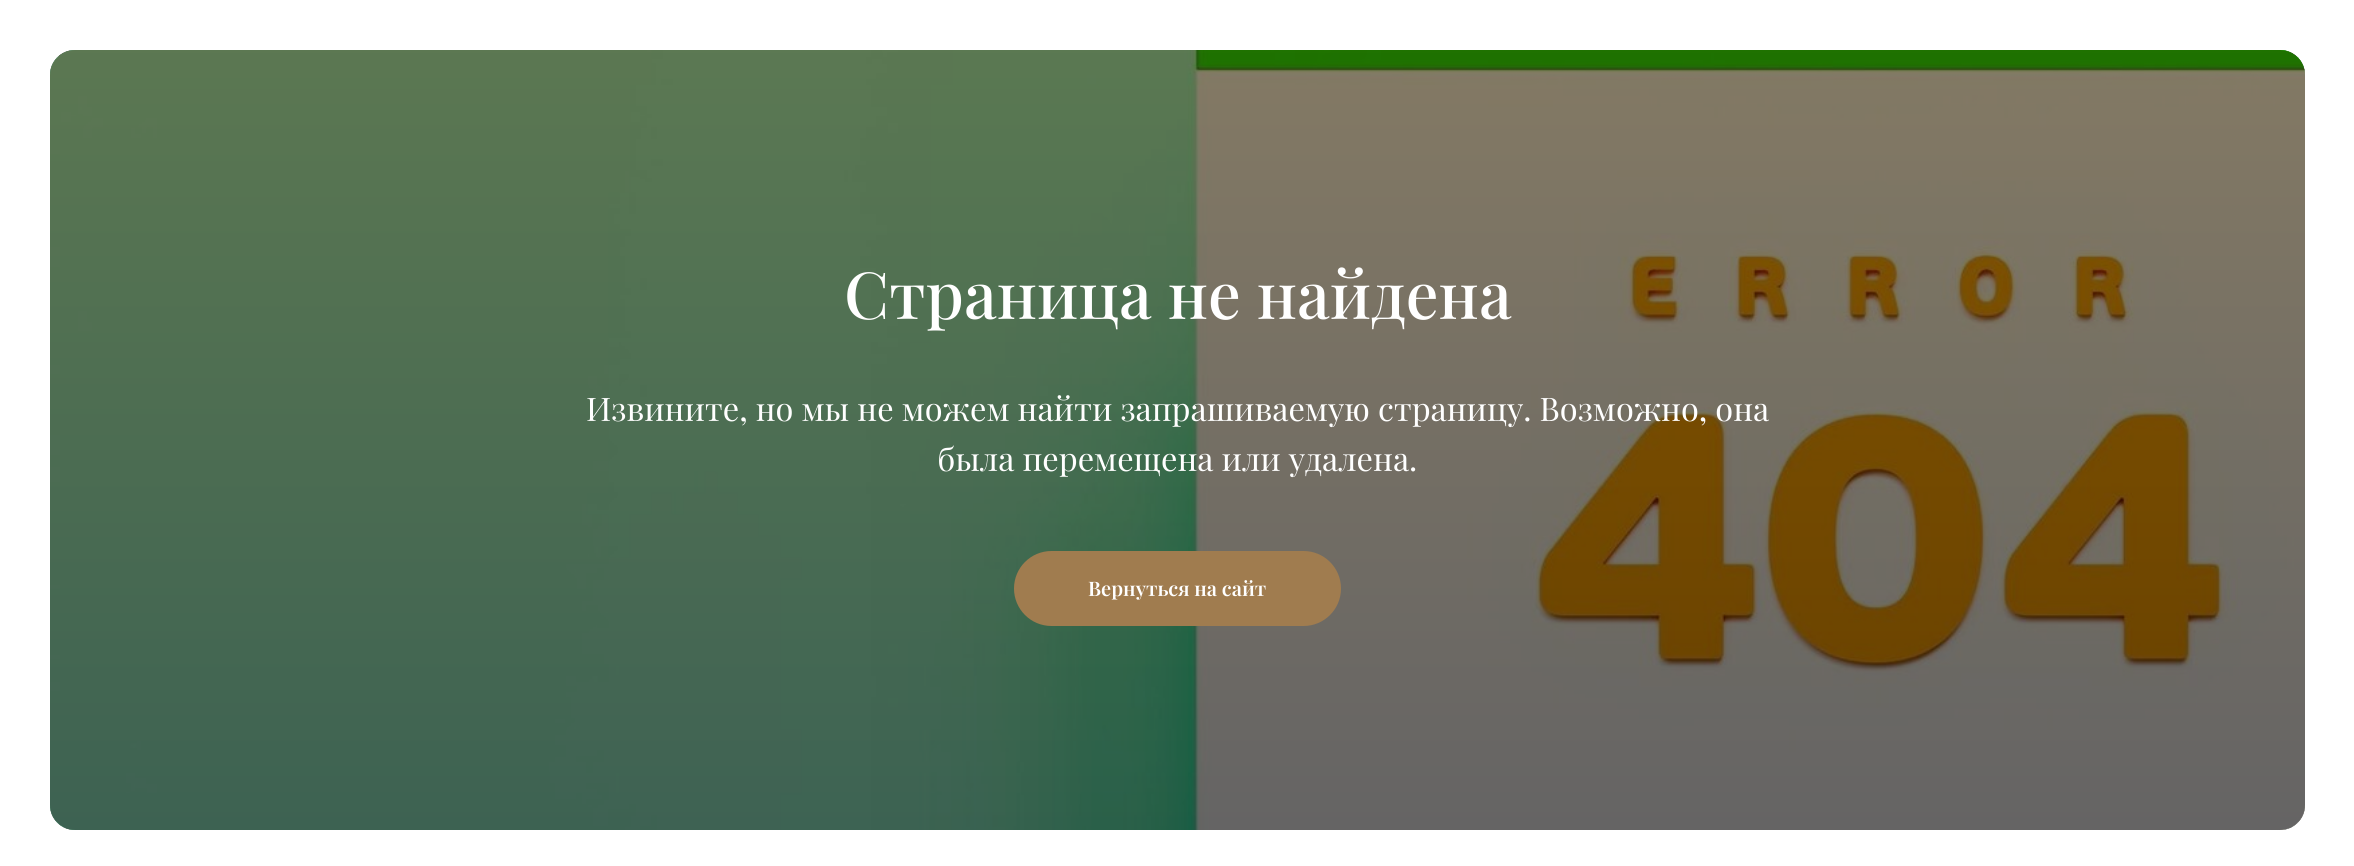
#include <cairo.h>
#include <math.h>
#include <stddef.h>


static void round_rect(cairo_t *cr, double x, double y, double w, double h, double r) {
    cairo_new_sub_path(cr);
    cairo_arc(cr, x + w - r, y + h - r, r, 0, M_PI / 2);
    cairo_arc(cr, x + r, y + h - r, r, M_PI / 2, M_PI);
    cairo_arc(cr, x + r, y + r, r, M_PI, 1.5 * M_PI);
    cairo_arc(cr, x + w - r, y + r, r, 1.5 * M_PI, 2 * M_PI);
    cairo_close_path(cr);
}

static void picture(cairo_t *cr, const char *path, double x, double y, double w, double h) {
    cairo_surface_t *image = cairo_image_surface_create_from_png(path);
    cairo_save(cr);
    cairo_set_source_surface(cr, image, x, y);
    cairo_rectangle(cr, x, y, w, h);
    cairo_fill(cr);
    cairo_restore(cr);
    cairo_surface_destroy(image);
}

int main(void) {
    cairo_surface_t *surface = cairo_image_surface_create(CAIRO_FORMAT_RGB24, 2354, 866);
    cairo_t *cr = cairo_create(surface);
    cairo_font_options_t *options = cairo_font_options_create();
    cairo_font_options_set_hint_metrics(options, CAIRO_HINT_METRICS_OFF);
    cairo_font_options_set_hint_style(options, CAIRO_HINT_STYLE_NONE);
    cairo_set_font_options(cr, options);
    cairo_set_miter_limit(cr, 4);
    cairo_pattern_t *gradient;
    cairo_set_source_rgb(cr, 1, 1, 1);
    cairo_paint(cr);
    cairo_set_source_rgb(cr, 0, 0, 0);
    round_rect(cr, 50, 50, 2255, 780, 25);
    cairo_fill(cr);
    picture(cr, "img1.png", 50, 50, 2255, 780);
    picture(cr, "img2.png", 50, 50, 2255, 780);
    gradient = cairo_pattern_create_linear(1178, 50, 1178, 830);
    cairo_pattern_add_color_stop_rgba(gradient, 0, 0.2, 0.141, 0, 0.6);
    cairo_pattern_add_color_stop_rgba(gradient, 1, 0, 0, 0, 0.6);
    cairo_set_source(cr, gradient);
    cairo_pattern_destroy(gradient);
    round_rect(cr, 50, 50, 2255, 780, 25);
    cairo_fill(cr);
    cairo_select_font_face(cr, "Playfair Display Medium", CAIRO_FONT_SLANT_NORMAL, CAIRO_FONT_WEIGHT_NORMAL);
    cairo_set_font_size(cr, 65);
    cairo_set_source_rgb(cr, 1, 1, 1);
    cairo_move_to(cr, 844, 319);
    cairo_show_text(cr, "Страница не найдена");
    cairo_select_font_face(cr, "Playfair Display", CAIRO_FONT_SLANT_NORMAL, CAIRO_FONT_WEIGHT_NORMAL);
    cairo_set_font_size(cr, 32.5);
    cairo_move_to(cr, 586, 421);
    cairo_show_text(cr, "Извините, но мы не можем найти запрашиваемую страницу. Возможно, она");
    cairo_move_to(cr, 937, 471);
    cairo_show_text(cr, "была перемещена или удалена.");
    cairo_set_source_rgb(cr, 0.627, 0.486, 0.31);
    round_rect(cr, 1014, 551, 327, 75, 37.5);
    cairo_fill(cr);
    cairo_select_font_face(cr, "Playfair Display SemiBold", CAIRO_FONT_SLANT_NORMAL, CAIRO_FONT_WEIGHT_NORMAL);
    cairo_set_font_size(cr, 20);
    cairo_set_source_rgb(cr, 1, 1, 1);
    cairo_move_to(cr, 1088, 596);
    cairo_show_text(cr, "Вернуться на сайт");
    cairo_surface_write_to_png(surface, "page.png");
    cairo_font_options_destroy(options);
    cairo_destroy(cr);
    cairo_surface_destroy(surface);
    return 0;
}
